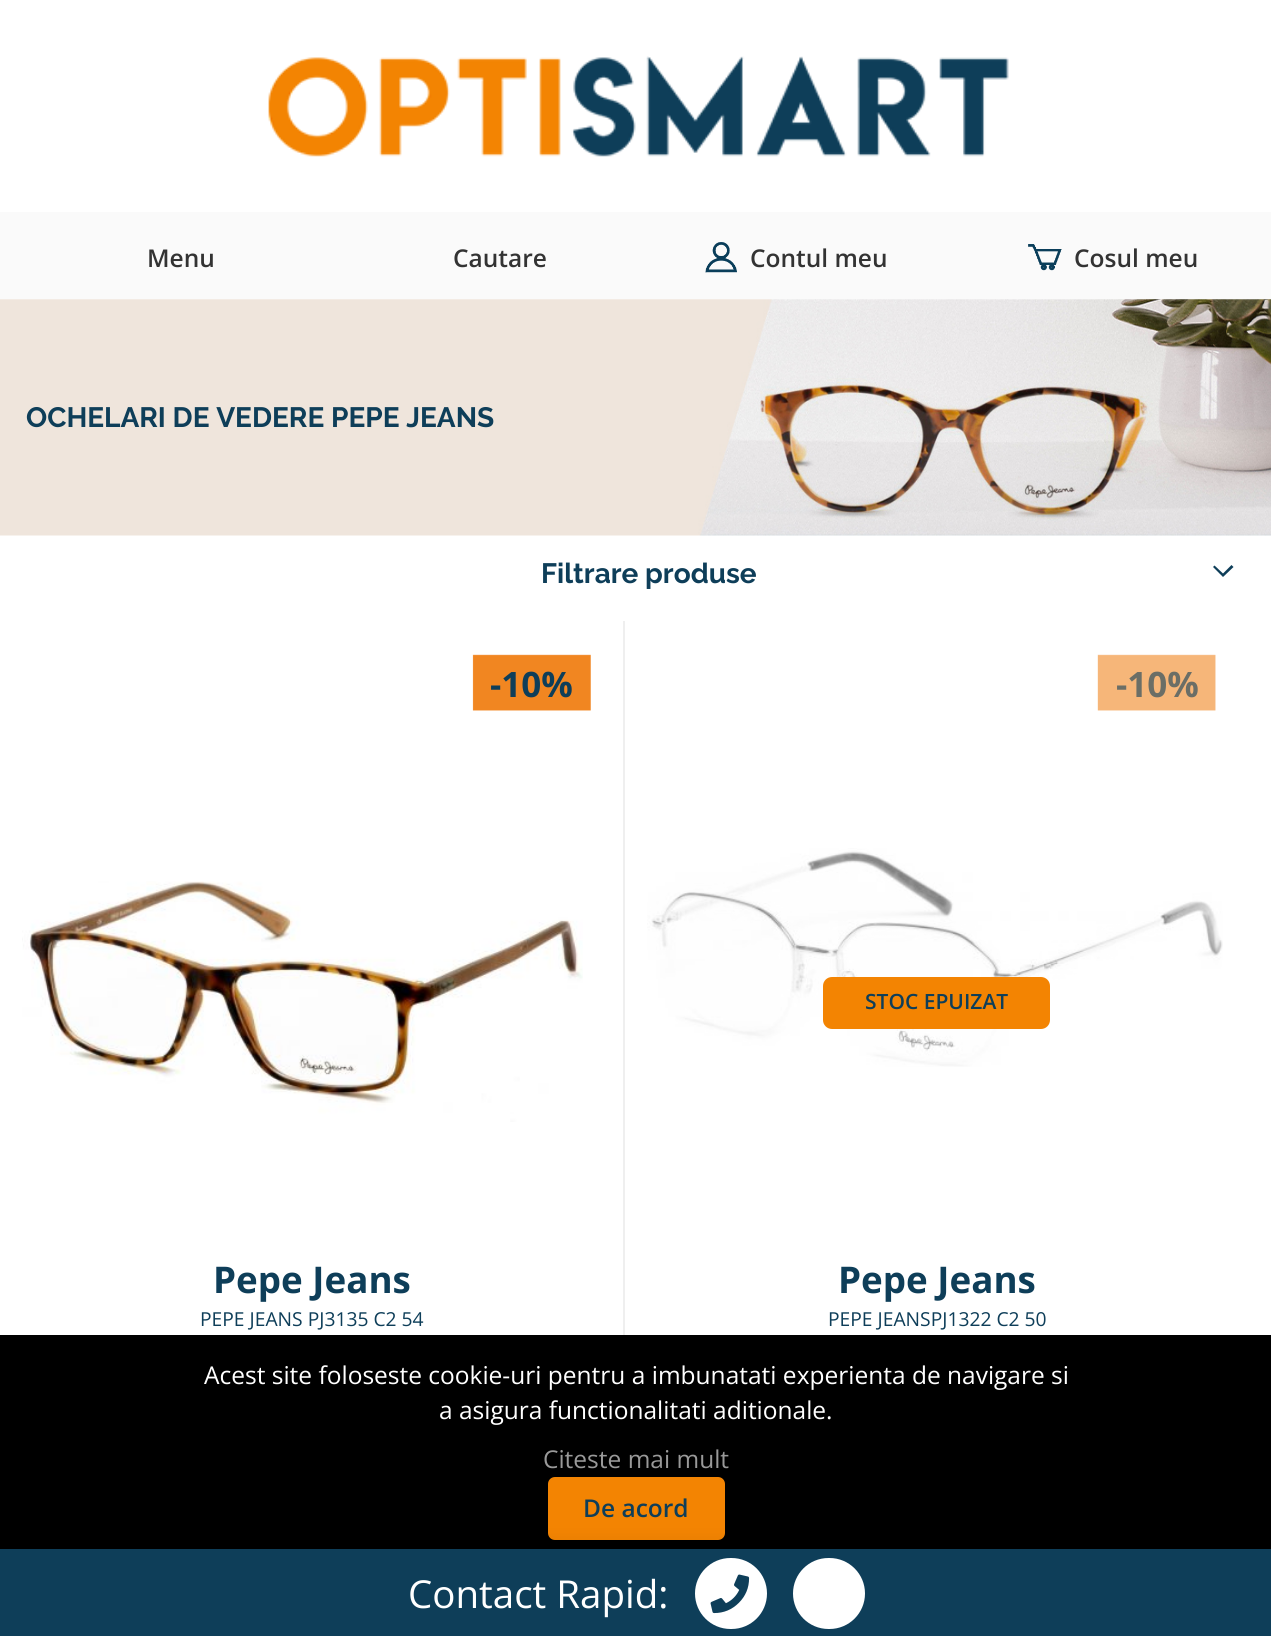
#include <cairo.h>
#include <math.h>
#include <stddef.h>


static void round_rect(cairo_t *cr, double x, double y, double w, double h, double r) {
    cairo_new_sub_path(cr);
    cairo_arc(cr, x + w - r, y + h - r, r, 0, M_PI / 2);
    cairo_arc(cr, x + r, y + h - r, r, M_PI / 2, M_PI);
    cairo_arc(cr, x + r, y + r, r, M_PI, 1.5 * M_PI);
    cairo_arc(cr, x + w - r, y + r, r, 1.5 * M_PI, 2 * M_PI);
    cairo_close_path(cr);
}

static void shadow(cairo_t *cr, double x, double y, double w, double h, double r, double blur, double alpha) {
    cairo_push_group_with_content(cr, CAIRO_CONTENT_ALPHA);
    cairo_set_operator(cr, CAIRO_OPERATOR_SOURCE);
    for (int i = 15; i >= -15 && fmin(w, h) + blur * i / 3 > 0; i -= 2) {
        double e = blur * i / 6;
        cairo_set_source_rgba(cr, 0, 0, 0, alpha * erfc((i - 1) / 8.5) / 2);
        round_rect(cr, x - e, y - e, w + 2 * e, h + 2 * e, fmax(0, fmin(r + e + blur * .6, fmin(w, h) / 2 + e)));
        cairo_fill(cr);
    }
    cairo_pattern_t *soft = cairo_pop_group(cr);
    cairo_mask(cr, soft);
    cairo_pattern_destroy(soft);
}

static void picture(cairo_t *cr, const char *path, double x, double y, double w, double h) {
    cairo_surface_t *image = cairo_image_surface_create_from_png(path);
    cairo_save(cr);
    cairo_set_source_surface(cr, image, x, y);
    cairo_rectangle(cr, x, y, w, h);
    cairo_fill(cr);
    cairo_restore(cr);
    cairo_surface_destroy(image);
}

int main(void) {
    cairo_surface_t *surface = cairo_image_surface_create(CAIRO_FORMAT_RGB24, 1271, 1636);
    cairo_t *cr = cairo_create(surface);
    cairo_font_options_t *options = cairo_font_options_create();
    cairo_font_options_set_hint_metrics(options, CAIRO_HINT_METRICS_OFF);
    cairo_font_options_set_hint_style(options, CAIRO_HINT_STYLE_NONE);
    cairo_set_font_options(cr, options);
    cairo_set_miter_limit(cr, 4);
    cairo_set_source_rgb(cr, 1, 1, 1);
    cairo_paint(cr);
    picture(cr, "img1.png", 268, 56, 741, 101);
    cairo_set_source_rgb(cr, 0.98, 0.98, 0.98);
    cairo_rectangle(cr, 0, 212, 1271, 87);
    cairo_fill(cr);
    cairo_select_font_face(cr, "Open Sans SemiBold", CAIRO_FONT_SLANT_NORMAL, CAIRO_FONT_WEIGHT_NORMAL);
    cairo_set_font_size(cr, 24.5);
    cairo_set_source_rgb(cr, 0.2, 0.2, 0.2);
    cairo_move_to(cr, 147, 267);
    cairo_show_text(cr, "Menu");
    cairo_move_to(cr, 453, 267);
    cairo_show_text(cr, "Cautare");
    picture(cr, "img2.png", 705, 242, 32, 31);
    cairo_move_to(cr, 750, 267);
    cairo_show_text(cr, "Contul meu");
    picture(cr, "img3.png", 1028, 244, 34, 27);
    cairo_move_to(cr, 1074, 267);
    cairo_show_text(cr, "Cosul meu");
    picture(cr, "img4.png", 0, 299, 1271, 237);
    cairo_select_font_face(cr, "Raleway", CAIRO_FONT_SLANT_NORMAL, CAIRO_FONT_WEIGHT_BOLD);
    cairo_set_font_size(cr, 28);
    cairo_set_source_rgb(cr, 0.055, 0.243, 0.349);
    cairo_move_to(cr, 26, 427);
    cairo_show_text(cr, "OCHELARI DE VEDERE PEPE JEANS");
    cairo_move_to(cr, 541, 583);
    cairo_show_text(cr, "Filtrare produse");
    cairo_new_path(cr);
    cairo_move_to(cr, 1223, 573.5);
    cairo_line_to(cr, 1214.5, 565.5);
    cairo_line_to(cr, 1213, 567);
    cairo_line_to(cr, 1223, 577);
    cairo_line_to(cr, 1233.5, 567);
    cairo_line_to(cr, 1231.5, 565);
    cairo_close_path(cr);
    cairo_fill(cr);
    cairo_set_source_rgb(cr, 0.937, 0.937, 0.937);
    cairo_rectangle(cr, 623, 621, 2, 714);
    cairo_fill(cr);
    picture(cr, "img5.png", 472, 654, 119, 57);
    cairo_select_font_face(cr, "Open Sans", CAIRO_FONT_SLANT_NORMAL, CAIRO_FONT_WEIGHT_BOLD);
    cairo_set_font_size(cr, 35);
    cairo_set_source_rgb(cr, 0.055, 0.243, 0.349);
    cairo_move_to(cr, 490, 697);
    cairo_show_text(cr, "-10%");
    picture(cr, "img6.png", 22, 881, 561, 241);
    cairo_set_font_size(cr, 36.75);
    cairo_move_to(cr, 213, 1293);
    cairo_show_text(cr, "Pepe Jeans");
    cairo_select_font_face(cr, "Open Sans", CAIRO_FONT_SLANT_NORMAL, CAIRO_FONT_WEIGHT_NORMAL);
    cairo_set_font_size(cr, 19.25);
    cairo_move_to(cr, 200, 1326);
    cairo_show_text(cr, "PEPE JEANS PJ3135 C2 54");
    picture(cr, "img7.png", 1097, 654, 119, 57);
    cairo_select_font_face(cr, "Open Sans", CAIRO_FONT_SLANT_NORMAL, CAIRO_FONT_WEIGHT_BOLD);
    cairo_set_font_size(cr, 35);
    cairo_set_source_rgb(cr, 0.42, 0.431, 0.4);
    cairo_move_to(cr, 1116, 697);
    cairo_show_text(cr, "-10%");
    picture(cr, "img8.png", 647, 848, 576, 219);
    cairo_set_source_rgb(cr, 0.953, 0.518, 0.008);
    round_rect(cr, 823, 977, 227, 52, 9);
    cairo_fill(cr);
    cairo_select_font_face(cr, "Open Sans SemiBold", CAIRO_FONT_SLANT_NORMAL, CAIRO_FONT_WEIGHT_NORMAL);
    cairo_set_font_size(cr, 21);
    cairo_set_source_rgb(cr, 0.055, 0.243, 0.349);
    cairo_move_to(cr, 865, 1009);
    cairo_show_text(cr, "STOC EPUIZAT");
    cairo_select_font_face(cr, "Open Sans", CAIRO_FONT_SLANT_NORMAL, CAIRO_FONT_WEIGHT_BOLD);
    cairo_set_font_size(cr, 36.75);
    cairo_move_to(cr, 838, 1293);
    cairo_show_text(cr, "Pepe Jeans");
    cairo_select_font_face(cr, "Open Sans", CAIRO_FONT_SLANT_NORMAL, CAIRO_FONT_WEIGHT_NORMAL);
    cairo_set_font_size(cr, 19.25);
    cairo_move_to(cr, 828, 1326);
    cairo_show_text(cr, "PEPE JEANSPJ1322 C2 50");
    cairo_set_source_rgb(cr, 0, 0, 0);
    cairo_rectangle(cr, 0, 1335, 1271, 214);
    cairo_fill(cr);
    cairo_set_source_rgb(cr, 0.953, 0.518, 0.008);
    round_rect(cr, 548, 1477, 177, 63, 7);
    cairo_fill(cr);
    cairo_set_source_rgb(cr, 0, 0, 0);
    shadow(cr, 0, 1544, 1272, 87, 0, 9, 0.1);
    cairo_set_source_rgb(cr, 0.055, 0.243, 0.349);
    cairo_rectangle(cr, 0, 1549, 1271, 87);
    cairo_fill(cr);
    cairo_set_font_size(cr, 38.5);
    cairo_set_source_rgb(cr, 1, 1, 1);
    cairo_move_to(cr, 408, 1608);
    cairo_show_text(cr, "Contact Rapid:");
    round_rect(cr, 695, 1558, 72, 71, 35.5);
    cairo_fill(cr);
    picture(cr, "img9.png", 710, 1574, 40, 40);
    round_rect(cr, 793, 1558, 72, 71, 35.5);
    cairo_fill(cr);
    cairo_set_font_size(cr, 24.5);
    cairo_move_to(cr, 204, 1384);
    cairo_show_text(cr, "Acest site foloseste cookie-uri pentru a imbunatati experienta de navigare si");
    cairo_move_to(cr, 439, 1419);
    cairo_show_text(cr, "a asigura functionalitati aditionale.");
    cairo_set_source_rgb(cr, 0.6, 0.6, 0.6);
    cairo_move_to(cr, 543, 1468);
    cairo_show_text(cr, "Citeste mai mult");
    cairo_select_font_face(cr, "Open Sans SemiBold", CAIRO_FONT_SLANT_NORMAL, CAIRO_FONT_WEIGHT_NORMAL);
    cairo_set_source_rgb(cr, 0.055, 0.243, 0.349);
    cairo_move_to(cr, 583, 1517);
    cairo_show_text(cr, "De acord");
    cairo_surface_write_to_png(surface, "page.png");
    cairo_font_options_destroy(options);
    cairo_destroy(cr);
    cairo_surface_destroy(surface);
    return 0;
}
